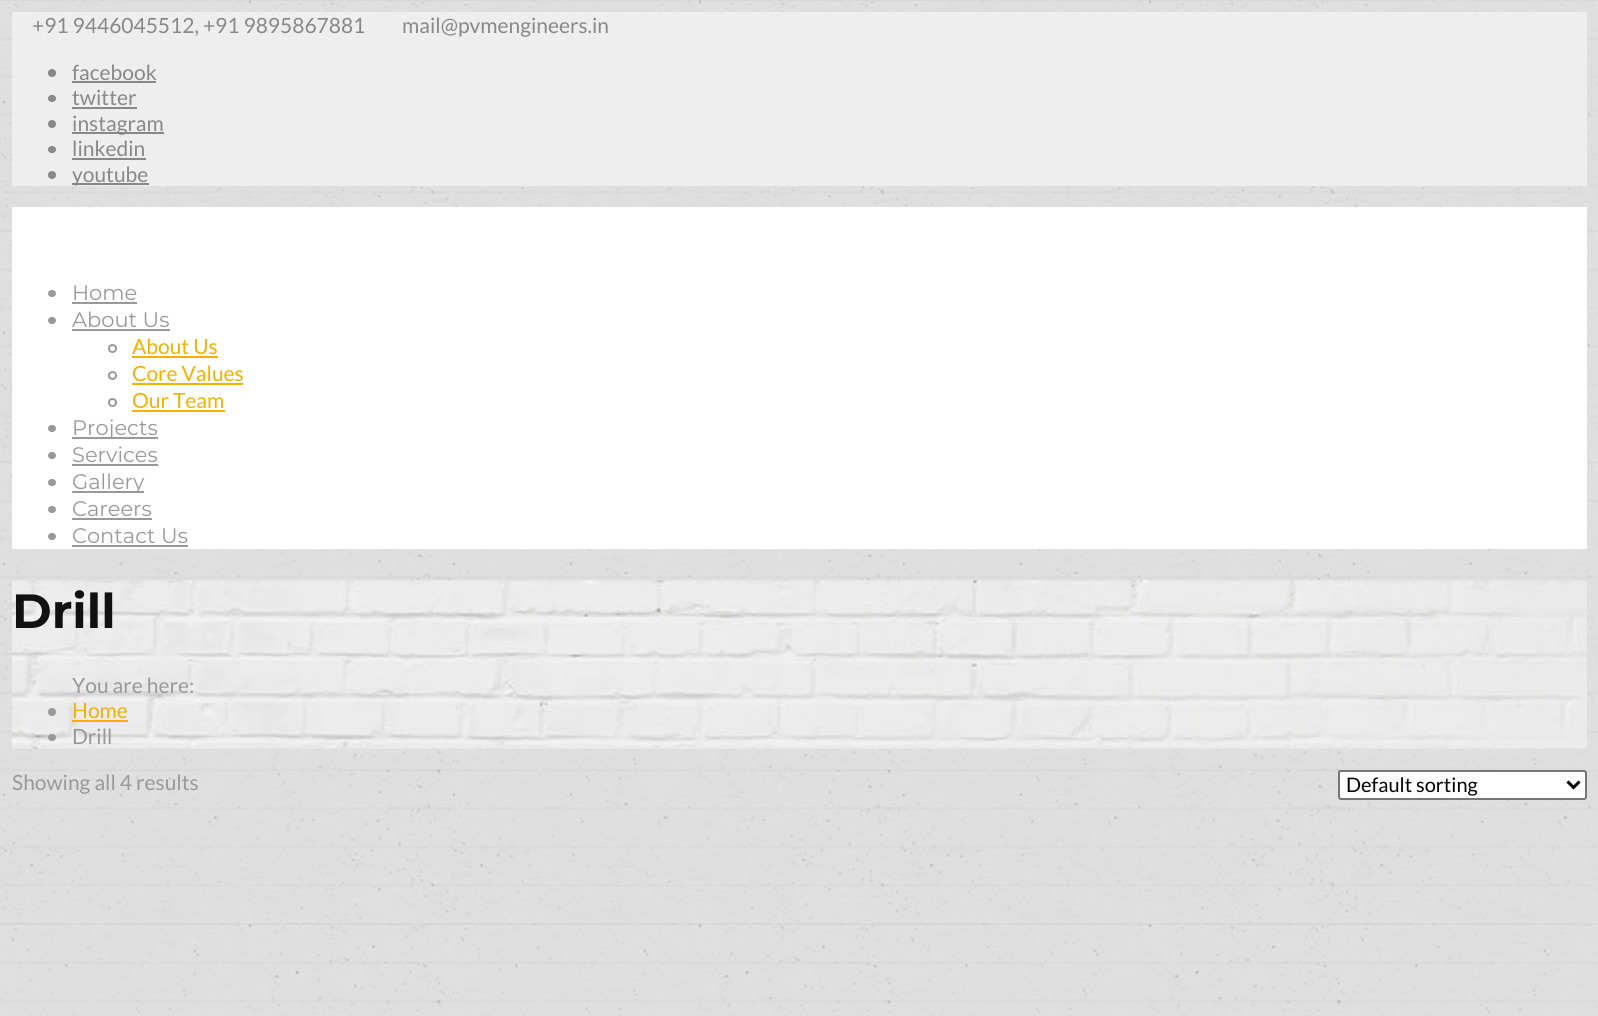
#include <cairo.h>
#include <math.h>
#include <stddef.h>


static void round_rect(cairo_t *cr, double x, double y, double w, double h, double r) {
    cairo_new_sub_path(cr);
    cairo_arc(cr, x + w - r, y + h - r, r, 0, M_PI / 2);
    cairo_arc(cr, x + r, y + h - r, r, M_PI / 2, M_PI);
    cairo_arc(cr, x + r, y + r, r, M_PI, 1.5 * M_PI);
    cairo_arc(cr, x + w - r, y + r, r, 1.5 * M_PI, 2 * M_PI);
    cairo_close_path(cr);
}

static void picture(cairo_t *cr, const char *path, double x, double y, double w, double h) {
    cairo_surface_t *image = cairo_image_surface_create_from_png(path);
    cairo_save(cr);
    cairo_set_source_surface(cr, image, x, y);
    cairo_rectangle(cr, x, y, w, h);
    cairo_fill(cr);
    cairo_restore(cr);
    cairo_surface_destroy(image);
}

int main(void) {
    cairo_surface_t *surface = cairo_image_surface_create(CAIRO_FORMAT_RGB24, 1598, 1016);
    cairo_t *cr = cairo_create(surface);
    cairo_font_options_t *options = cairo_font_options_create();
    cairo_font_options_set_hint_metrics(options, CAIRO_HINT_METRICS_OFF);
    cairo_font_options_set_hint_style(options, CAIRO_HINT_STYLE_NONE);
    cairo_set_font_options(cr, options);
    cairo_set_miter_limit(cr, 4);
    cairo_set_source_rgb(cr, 1, 1, 1);
    cairo_paint(cr);
    picture(cr, "img1.png", 0, 0, 1598, 1016);
    cairo_set_source_rgb(cr, 0.933, 0.933, 0.933);
    cairo_rectangle(cr, 12, 12, 1575, 174);
    cairo_fill(cr);
    cairo_select_font_face(cr, "Lato", CAIRO_FONT_SLANT_NORMAL, CAIRO_FONT_WEIGHT_NORMAL);
    cairo_set_font_size(cr, 21);
    cairo_set_source_rgb(cr, 0.533, 0.533, 0.533);
    cairo_move_to(cr, 32, 33);
    cairo_show_text(cr, "+91 9446045512, +91 9895867881");
    cairo_move_to(cr, 402, 33);
    cairo_show_text(cr, "mail@pvmengineers.in");
    cairo_new_path(cr);
    cairo_arc(cr, 52, 73, 4, 0, 2 * M_PI);
    cairo_fill(cr);
    cairo_move_to(cr, 72, 80);
    cairo_show_text(cr, "facebook");
    cairo_rectangle(cr, 72, 81, 84, 2);
    cairo_fill(cr);
    round_rect(cr, 48, 95, 8, 7, 3.5);
    cairo_fill(cr);
    cairo_move_to(cr, 72, 105);
    cairo_show_text(cr, "twitter");
    cairo_rectangle(cr, 72, 107, 65, 2);
    cairo_fill(cr);
    cairo_arc(cr, 52, 124, 4, 0, 2 * M_PI);
    cairo_fill(cr);
    cairo_rectangle(cr, 72, 132, 92, 2);
    cairo_fill(cr);
    cairo_move_to(cr, 72, 131);
    cairo_show_text(cr, "instagram");
    round_rect(cr, 48, 146, 8, 7, 3.5);
    cairo_fill(cr);
    cairo_move_to(cr, 72, 156);
    cairo_show_text(cr, "linkedin");
    cairo_rectangle(cr, 72, 158, 74, 2);
    cairo_fill(cr);
    cairo_arc(cr, 52, 175, 4, 0, 2 * M_PI);
    cairo_fill(cr);
    cairo_rectangle(cr, 72, 183, 77, 2);
    cairo_fill(cr);
    cairo_move_to(cr, 72, 182);
    cairo_show_text(cr, "youtube");
    cairo_set_source_rgb(cr, 1, 1, 1);
    cairo_rectangle(cr, 12, 207, 1575, 342);
    cairo_fill(cr);
    cairo_set_source_rgb(cr, 0.6, 0.6, 0.6);
    round_rect(cr, 48, 290, 8, 7, 3.5);
    cairo_fill(cr);
    cairo_select_font_face(cr, "Montserrat", CAIRO_FONT_SLANT_NORMAL, CAIRO_FONT_WEIGHT_NORMAL);
    cairo_move_to(cr, 72, 300);
    cairo_show_text(cr, "Home");
    cairo_rectangle(cr, 72, 302, 65, 2);
    cairo_fill(cr);
    round_rect(cr, 48, 317, 8, 7, 3.5);
    cairo_fill(cr);
    cairo_move_to(cr, 72, 327);
    cairo_show_text(cr, "About Us");
    cairo_rectangle(cr, 72, 329, 98, 2);
    cairo_fill(cr);
    cairo_arc(cr, 112.5, 348.5, 3.5, 0, 2 * M_PI);
    cairo_stroke(cr);
    cairo_select_font_face(cr, "Lato", CAIRO_FONT_SLANT_NORMAL, CAIRO_FONT_WEIGHT_NORMAL);
    cairo_set_source_rgb(cr, 0.953, 0.694, 0.012);
    cairo_move_to(cr, 132, 354);
    cairo_show_text(cr, "About Us");
    cairo_rectangle(cr, 132, 356, 86, 2);
    cairo_fill(cr);
    cairo_arc(cr, 112.5, 375.5, 3.5, 0, 2 * M_PI);
    cairo_set_source_rgb(cr, 0.6, 0.6, 0.6);
    cairo_stroke(cr);
    cairo_set_source_rgb(cr, 0.953, 0.694, 0.012);
    cairo_move_to(cr, 132, 381);
    cairo_show_text(cr, "Core Values");
    cairo_rectangle(cr, 132, 383, 111, 2);
    cairo_fill(cr);
    cairo_arc(cr, 112.5, 402.5, 3.5, 0, 2 * M_PI);
    cairo_set_source_rgb(cr, 0.6, 0.6, 0.6);
    cairo_stroke(cr);
    cairo_set_source_rgb(cr, 0.953, 0.694, 0.012);
    cairo_move_to(cr, 132, 408);
    cairo_show_text(cr, "Our Team");
    cairo_rectangle(cr, 132, 410, 93, 2);
    cairo_fill(cr);
    cairo_set_source_rgb(cr, 0.6, 0.6, 0.6);
    round_rect(cr, 48, 425, 8, 7, 3.5);
    cairo_fill(cr);
    cairo_rectangle(cr, 72, 437, 86, 2);
    cairo_fill(cr);
    cairo_select_font_face(cr, "Montserrat", CAIRO_FONT_SLANT_NORMAL, CAIRO_FONT_WEIGHT_NORMAL);
    cairo_move_to(cr, 72, 435);
    cairo_show_text(cr, "Projects");
    round_rect(cr, 48, 452, 8, 7, 3.5);
    cairo_fill(cr);
    cairo_move_to(cr, 72, 462);
    cairo_show_text(cr, "Services");
    cairo_rectangle(cr, 72, 464, 86, 2);
    cairo_fill(cr);
    round_rect(cr, 48, 479, 8, 7, 3.5);
    cairo_fill(cr);
    cairo_rectangle(cr, 72, 491, 72, 2);
    cairo_fill(cr);
    cairo_move_to(cr, 72, 489);
    cairo_show_text(cr, "Gallery");
    round_rect(cr, 48, 506, 8, 7, 3.5);
    cairo_fill(cr);
    cairo_move_to(cr, 72, 516);
    cairo_show_text(cr, "Careers");
    cairo_rectangle(cr, 72, 518, 80, 2);
    cairo_fill(cr);
    round_rect(cr, 48, 533, 8, 7, 3.5);
    cairo_fill(cr);
    cairo_move_to(cr, 72, 543);
    cairo_show_text(cr, "Contact Us");
    cairo_rectangle(cr, 72, 545, 116, 2);
    cairo_fill(cr);
    picture(cr, "img2.png", 12, 580, 1575, 169);
    cairo_select_font_face(cr, "Montserrat", CAIRO_FONT_SLANT_NORMAL, CAIRO_FONT_WEIGHT_BOLD);
    cairo_set_font_size(cr, 48);
    cairo_set_source_rgb(cr, 0.067, 0.067, 0.067);
    cairo_move_to(cr, 12, 628);
    cairo_show_text(cr, "Drill");
    cairo_select_font_face(cr, "Lato", CAIRO_FONT_SLANT_NORMAL, CAIRO_FONT_WEIGHT_NORMAL);
    cairo_set_font_size(cr, 21);
    cairo_set_source_rgb(cr, 0.6, 0.6, 0.6);
    cairo_move_to(cr, 72, 693);
    cairo_show_text(cr, "You are here:");
    cairo_new_path(cr);
    cairo_arc(cr, 52, 712, 4, 0, 2 * M_PI);
    cairo_fill(cr);
    cairo_set_source_rgb(cr, 0.953, 0.694, 0.012);
    cairo_move_to(cr, 72, 718);
    cairo_show_text(cr, "Home");
    cairo_rectangle(cr, 72, 720, 56, 2);
    cairo_fill(cr);
    cairo_set_source_rgb(cr, 0.6, 0.6, 0.6);
    round_rect(cr, 48, 734, 8, 7, 3.5);
    cairo_fill(cr);
    cairo_move_to(cr, 72, 744);
    cairo_show_text(cr, "Drill");
    cairo_move_to(cr, 12, 790);
    cairo_show_text(cr, "Showing all 4 results");
    cairo_set_source_rgb(cr, 1, 1, 1);
    round_rect(cr, 1339, 771, 247, 28, 2);
    cairo_fill_preserve(cr);
    cairo_set_source_rgb(cr, 0.463, 0.463, 0.463);
    cairo_stroke(cr);
    cairo_new_path(cr);
    cairo_move_to(cr, 1567.5, 781.5);
    cairo_line_to(cr, 1573.5, 787.5);
    cairo_line_to(cr, 1579.5, 781.5);
    cairo_set_source_rgb(cr, 0, 0, 0);
    cairo_set_line_width(cr, 3);
    cairo_stroke(cr);
    cairo_set_font_size(cr, 20);
    cairo_move_to(cr, 1346, 792);
    cairo_show_text(cr, "Default sorting");
    cairo_surface_write_to_png(surface, "page.png");
    cairo_font_options_destroy(options);
    cairo_destroy(cr);
    cairo_surface_destroy(surface);
    return 0;
}
